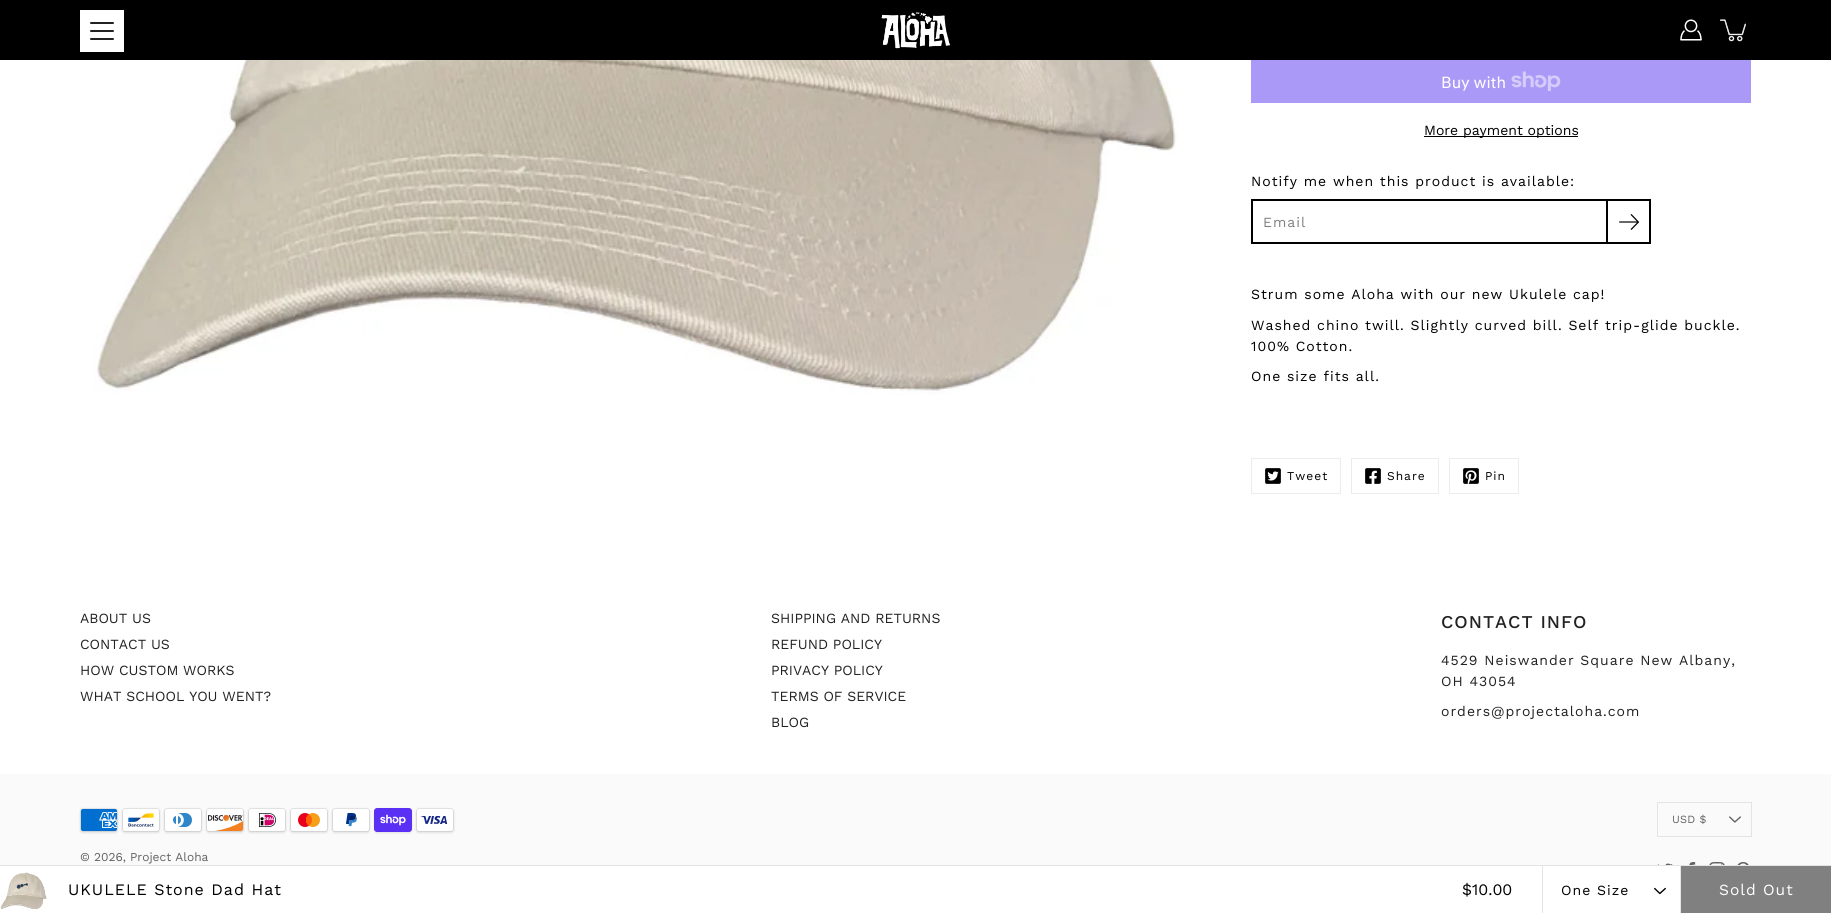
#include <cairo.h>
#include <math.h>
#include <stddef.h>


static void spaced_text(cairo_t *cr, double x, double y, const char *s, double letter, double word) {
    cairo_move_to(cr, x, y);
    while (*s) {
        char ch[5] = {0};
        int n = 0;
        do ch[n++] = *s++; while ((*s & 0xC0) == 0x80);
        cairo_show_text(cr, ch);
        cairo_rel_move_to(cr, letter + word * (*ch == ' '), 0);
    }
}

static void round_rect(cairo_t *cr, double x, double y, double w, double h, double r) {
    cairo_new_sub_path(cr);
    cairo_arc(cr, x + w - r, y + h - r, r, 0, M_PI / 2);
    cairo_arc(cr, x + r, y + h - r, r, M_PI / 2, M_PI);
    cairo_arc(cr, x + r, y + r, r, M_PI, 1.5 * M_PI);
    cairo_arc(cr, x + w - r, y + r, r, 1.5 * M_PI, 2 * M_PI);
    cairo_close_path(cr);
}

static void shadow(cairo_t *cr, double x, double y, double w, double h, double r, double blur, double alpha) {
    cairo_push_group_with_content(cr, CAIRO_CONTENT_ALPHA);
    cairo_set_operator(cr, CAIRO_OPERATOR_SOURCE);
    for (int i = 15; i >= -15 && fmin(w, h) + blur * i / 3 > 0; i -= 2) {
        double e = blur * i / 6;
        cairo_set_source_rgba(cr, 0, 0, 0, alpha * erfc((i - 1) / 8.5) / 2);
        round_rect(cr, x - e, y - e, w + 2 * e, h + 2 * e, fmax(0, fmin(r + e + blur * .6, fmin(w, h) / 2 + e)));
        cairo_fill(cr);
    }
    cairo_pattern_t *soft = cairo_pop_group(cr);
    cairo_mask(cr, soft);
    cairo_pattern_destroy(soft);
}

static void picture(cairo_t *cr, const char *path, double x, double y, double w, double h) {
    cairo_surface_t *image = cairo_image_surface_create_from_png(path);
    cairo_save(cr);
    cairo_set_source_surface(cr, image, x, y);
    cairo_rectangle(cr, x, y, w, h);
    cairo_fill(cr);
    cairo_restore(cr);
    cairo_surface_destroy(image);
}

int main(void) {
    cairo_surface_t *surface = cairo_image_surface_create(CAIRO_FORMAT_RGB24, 1831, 913);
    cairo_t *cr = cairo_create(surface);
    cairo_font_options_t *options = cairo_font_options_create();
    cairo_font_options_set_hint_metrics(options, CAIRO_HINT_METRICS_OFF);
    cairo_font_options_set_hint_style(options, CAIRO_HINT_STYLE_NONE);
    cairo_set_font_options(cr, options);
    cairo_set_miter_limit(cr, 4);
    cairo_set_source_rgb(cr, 1, 1, 1);
    cairo_paint(cr);
    cairo_set_source_rgb(cr, 0, 0, 0);
    cairo_rectangle(cr, 0, 0, 1831, 60);
    cairo_fill(cr);
    cairo_set_source_rgb(cr, 1, 1, 1);
    cairo_rectangle(cr, 80, 10, 44, 42);
    cairo_fill(cr);
    cairo_set_source_rgb(cr, 0.133, 0.133, 0.133);
    round_rect(cr, 90, 30, 24, 2, 1);
    cairo_fill(cr);
    round_rect(cr, 90, 22, 24, 2, 1);
    cairo_fill(cr);
    round_rect(cr, 90, 38, 24, 2, 1);
    cairo_fill(cr);
    picture(cr, "img1.png", 1680, 19, 22, 22);
    picture(cr, "img2.png", 1720, 19, 26, 23);
    picture(cr, "img3.png", 881, 12, 69, 37);
    picture(cr, "img4.png", 93, 60, 1085, 335);
    cairo_set_source_rgb(cr, 0.667, 0.6, 0.961);
    cairo_rectangle(cr, 1251, 60, 500, 43);
    cairo_fill(cr);
    cairo_select_font_face(cr, "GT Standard", CAIRO_FONT_SLANT_NORMAL, CAIRO_FONT_WEIGHT_NORMAL);
    cairo_set_font_size(cr, 16);
    cairo_set_source_rgb(cr, 1, 1, 1);
    cairo_move_to(cr, 1441, 88);
    cairo_show_text(cr, "Buy with");
    picture(cr, "img5.png", 1511, 71, 50, 20);
    cairo_set_source_rgb(cr, 0, 0, 0);
    cairo_rectangle(cr, 1424, 136, 154, 1);
    cairo_fill(cr);
    cairo_select_font_face(cr, "Work Sans", CAIRO_FONT_SLANT_NORMAL, CAIRO_FONT_WEIGHT_NORMAL);
    cairo_set_font_size(cr, 14);
    cairo_move_to(cr, 1424, 135);
    cairo_show_text(cr, "More payment options");
    spaced_text(cr, 1251, 186, "Notify me when this product is available:", 1, 0);
    cairo_rectangle(cr, 1252, 200, 398, 43);
    cairo_stroke(cr);
    cairo_set_source_rgb(cr, 0.502, 0.502, 0.502);
    spaced_text(cr, 1263, 227, "Email", 1, 0);
    cairo_rectangle(cr, 1607, 200, 43, 43);
    cairo_set_source_rgb(cr, 0, 0, 0);
    cairo_stroke(cr);
    picture(cr, "img6.png", 1619, 214, 20, 16);
    spaced_text(cr, 1251, 299, "Strum some Aloha with our new Ukulele cap!", 1, 0);
    spaced_text(cr, 1251, 330, "Washed chino twill. Slightly curved bill. Self trip-glide buckle.", 1, 0);
    spaced_text(cr, 1251, 351, "100% Cotton.", 1, 0);
    spaced_text(cr, 1251, 381, "One size fits all.", 1, 0);
    cairo_rectangle(cr, 1251.5, 458.5, 89, 35);
    cairo_set_source_rgb(cr, 0.922, 0.922, 0.922);
    cairo_set_line_width(cr, 1);
    cairo_stroke(cr);
    picture(cr, "img7.png", 1265, 468, 16, 16);
    cairo_set_font_size(cr, 12);
    cairo_set_source_rgb(cr, 0, 0, 0);
    spaced_text(cr, 1287, 480, "Tweet", 1, 0);
    cairo_rectangle(cr, 1351.5, 458.5, 87, 35);
    cairo_set_source_rgb(cr, 0.922, 0.922, 0.922);
    cairo_stroke(cr);
    picture(cr, "img8.png", 1365, 468, 16, 16);
    cairo_set_source_rgb(cr, 0, 0, 0);
    spaced_text(cr, 1387, 480, "Share", 1, 0);
    cairo_rectangle(cr, 1449.5, 458.5, 69, 35);
    cairo_set_source_rgb(cr, 0.922, 0.922, 0.922);
    cairo_stroke(cr);
    picture(cr, "img9.png", 1463, 468, 16, 16);
    cairo_set_source_rgb(cr, 0, 0, 0);
    spaced_text(cr, 1485, 480, "Pin", 1, 0);
    cairo_set_font_size(cr, 14);
    cairo_set_source_rgb(cr, 0.133, 0.133, 0.133);
    cairo_move_to(cr, 80, 623);
    cairo_show_text(cr, "ABOUT US");
    cairo_move_to(cr, 80, 649);
    cairo_show_text(cr, "CONTACT US");
    cairo_move_to(cr, 80, 675);
    cairo_show_text(cr, "HOW CUSTOM WORKS");
    cairo_move_to(cr, 80, 701);
    cairo_show_text(cr, "WHAT SCHOOL YOU WENT?");
    cairo_move_to(cr, 771, 623);
    cairo_show_text(cr, "SHIPPING AND RETURNS");
    cairo_move_to(cr, 771, 649);
    cairo_show_text(cr, "REFUND POLICY");
    cairo_move_to(cr, 771, 675);
    cairo_show_text(cr, "PRIVACY POLICY");
    cairo_move_to(cr, 771, 701);
    cairo_show_text(cr, "TERMS OF SERVICE");
    cairo_move_to(cr, 771, 727);
    cairo_show_text(cr, "BLOG");
    cairo_select_font_face(cr, "Work Sans Medium", CAIRO_FONT_SLANT_NORMAL, CAIRO_FONT_WEIGHT_NORMAL);
    cairo_set_font_size(cr, 18);
    spaced_text(cr, 1441, 628, "CONTACT INFO", 1, 0);
    cairo_select_font_face(cr, "Work Sans", CAIRO_FONT_SLANT_NORMAL, CAIRO_FONT_WEIGHT_NORMAL);
    cairo_set_font_size(cr, 14);
    spaced_text(cr, 1441, 665, "4529 Neiswander Square New Albany,", 1, 0);
    spaced_text(cr, 1441, 686, "OH 43054", 1, 0);
    spaced_text(cr, 1441, 716, "orders@projectaloha.com", 1, 0);
    cairo_set_source_rgb(cr, 0.98, 0.98, 0.98);
    cairo_rectangle(cr, 0, 774, 1831, 91);
    cairo_fill(cr);
    cairo_rectangle(cr, 1657.5, 802.5, 94, 34);
    cairo_set_source_rgb(cr, 0.894, 0.894, 0.894);
    cairo_stroke(cr);
    cairo_set_font_size(cr, 11);
    cairo_set_source_rgb(cr, 0.388, 0.388, 0.388);
    spaced_text(cr, 1672, 823, "USD $", 0.25, 0);
    picture(cr, "img10.png", 1729, 816, 12, 7);
    picture(cr, "img11.png", 1657, 863, 16, 2);
    picture(cr, "img12.png", 1689, 862, 7, 3);
    picture(cr, "img13.png", 1709, 862, 16, 3);
    picture(cr, "img14.png", 1737, 862, 12, 3);
    cairo_set_source_rgb(cr, 0, 0, 0);
    shadow(cr, 80, 809, 38, 24, 3, 1, 0.1);
    picture(cr, "img15.png", 80, 808, 38, 24);
    shadow(cr, 122, 809, 38, 24, 3, 1, 0.1);
    picture(cr, "img16.png", 122, 808, 38, 24);
    shadow(cr, 164, 809, 38, 24, 3, 1, 0.1);
    picture(cr, "img17.png", 164, 808, 38, 24);
    shadow(cr, 206, 809, 38, 24, 3, 1, 0.1);
    picture(cr, "img18.png", 206, 808, 38, 24);
    shadow(cr, 248, 809, 38, 24, 3, 1, 0.1);
    picture(cr, "img19.png", 248, 808, 38, 24);
    shadow(cr, 290, 809, 38, 24, 3, 1, 0.1);
    picture(cr, "img20.png", 290, 808, 38, 24);
    shadow(cr, 332, 809, 38, 24, 3, 1, 0.1);
    picture(cr, "img21.png", 332, 808, 38, 24);
    shadow(cr, 374, 809, 38, 24, 3, 1, 0.1);
    picture(cr, "img22.png", 374, 808, 38, 24);
    shadow(cr, 416, 809, 38, 24, 3, 1, 0.1);
    picture(cr, "img23.png", 416, 808, 38, 24);
    cairo_set_font_size(cr, 12);
    cairo_set_source_rgb(cr, 0.388, 0.388, 0.388);
    cairo_move_to(cr, 80, 861);
    cairo_show_text(cr, "© 2026, Project Aloha");
    cairo_set_source_rgb(cr, 0.894, 0.894, 0.894);
    cairo_rectangle(cr, 0, 865, 1831, 1);
    cairo_fill(cr);
    cairo_rectangle(cr, 1542, 866, 1, 47);
    cairo_fill(cr);
    picture(cr, "img24.png", 0, 872, 47, 37);
    cairo_set_font_size(cr, 16);
    cairo_set_source_rgb(cr, 0, 0, 0);
    spaced_text(cr, 68, 895, "UKULELE Stone Dad Hat", 1, 0);
    cairo_move_to(cr, 1462, 895);
    cairo_show_text(cr, "$10.00");
    cairo_set_source_rgb(cr, 0.894, 0.894, 0.894);
    cairo_rectangle(cr, 1680, 866, 1, 47);
    cairo_fill(cr);
    cairo_set_font_size(cr, 14);
    cairo_set_source_rgb(cr, 0, 0, 0);
    spaced_text(cr, 1561, 895, "One Size", 1, 0);
    picture(cr, "img25.png", 1654, 887, 12, 8);
    cairo_set_source_rgb(cr, 0.502, 0.502, 0.502);
    cairo_rectangle(cr, 1681, 866, 150, 47);
    cairo_fill(cr);
    cairo_set_font_size(cr, 15.5);
    cairo_set_source_rgb(cr, 1, 1, 1);
    spaced_text(cr, 1719, 895, "Sold Out", 1, 0);
    cairo_surface_write_to_png(surface, "page.png");
    cairo_font_options_destroy(options);
    cairo_destroy(cr);
    cairo_surface_destroy(surface);
    return 0;
}
